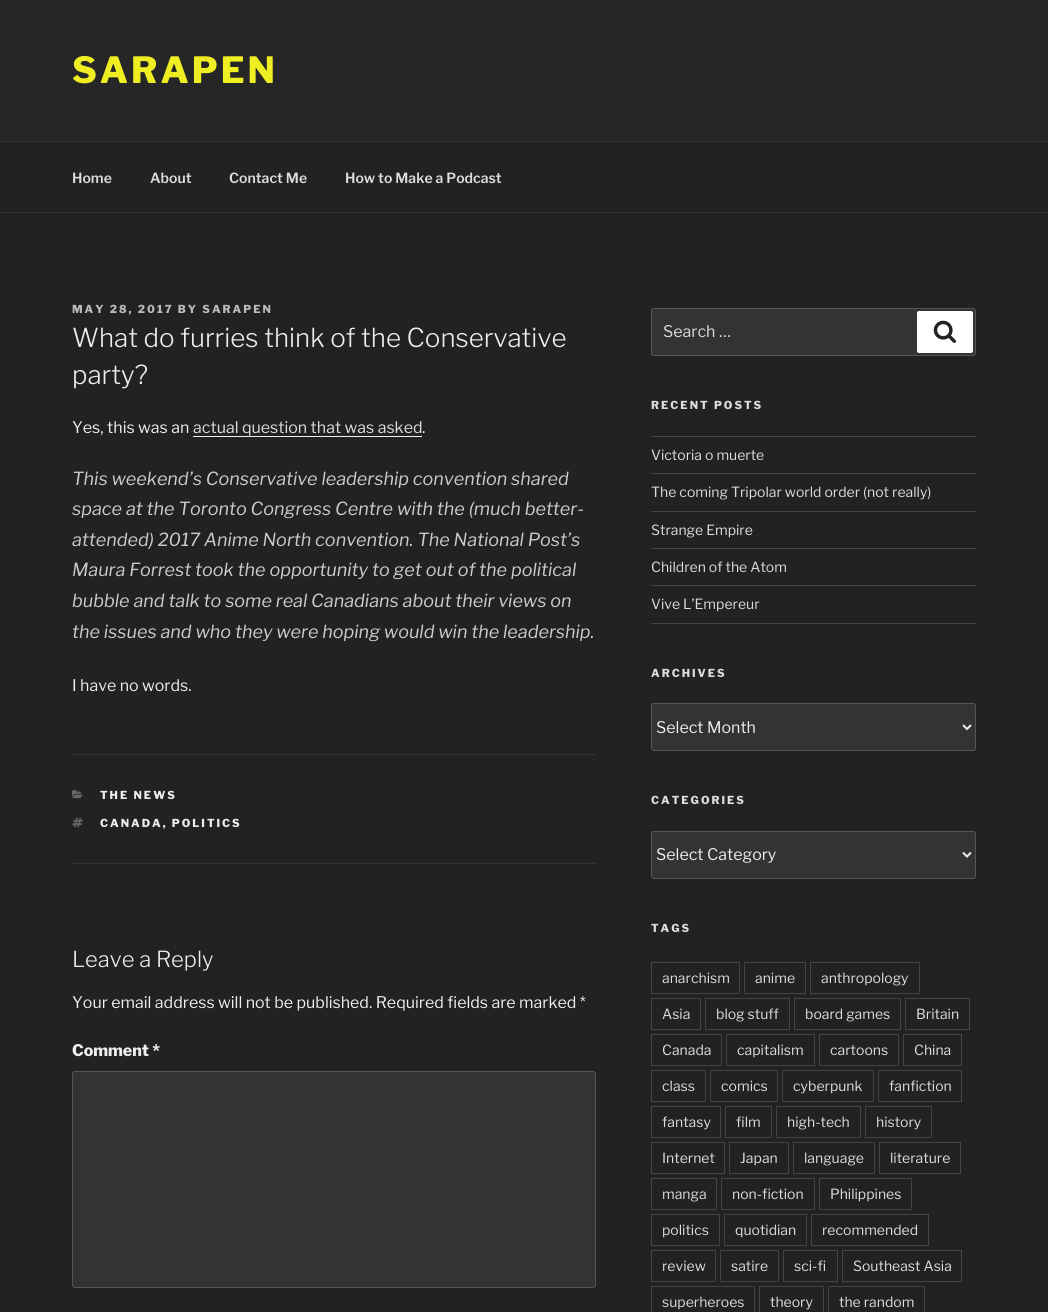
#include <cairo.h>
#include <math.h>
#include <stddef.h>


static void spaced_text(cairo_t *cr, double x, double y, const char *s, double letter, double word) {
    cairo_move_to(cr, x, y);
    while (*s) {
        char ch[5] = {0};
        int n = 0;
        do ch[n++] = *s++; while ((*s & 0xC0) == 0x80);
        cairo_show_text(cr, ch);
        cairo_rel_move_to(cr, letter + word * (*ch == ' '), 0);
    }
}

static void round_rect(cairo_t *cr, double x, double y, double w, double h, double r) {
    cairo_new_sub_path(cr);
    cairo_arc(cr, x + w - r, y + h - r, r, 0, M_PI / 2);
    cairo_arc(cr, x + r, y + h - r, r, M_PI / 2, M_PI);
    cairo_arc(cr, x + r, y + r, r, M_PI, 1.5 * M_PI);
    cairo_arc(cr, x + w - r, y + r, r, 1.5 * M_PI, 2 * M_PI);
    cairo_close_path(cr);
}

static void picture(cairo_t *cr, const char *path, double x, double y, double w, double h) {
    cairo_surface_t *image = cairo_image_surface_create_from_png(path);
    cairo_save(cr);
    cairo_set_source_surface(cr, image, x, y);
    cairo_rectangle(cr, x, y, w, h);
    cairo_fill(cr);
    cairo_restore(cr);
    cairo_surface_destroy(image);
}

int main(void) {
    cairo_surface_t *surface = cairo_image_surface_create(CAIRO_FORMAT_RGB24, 1048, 1312);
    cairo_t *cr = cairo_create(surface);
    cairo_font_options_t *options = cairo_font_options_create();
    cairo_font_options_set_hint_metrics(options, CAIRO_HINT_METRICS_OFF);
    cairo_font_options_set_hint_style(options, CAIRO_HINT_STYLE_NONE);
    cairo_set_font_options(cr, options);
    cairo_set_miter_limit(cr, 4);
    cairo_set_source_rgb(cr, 0.133, 0.133, 0.133);
    cairo_paint(cr);
    cairo_set_source_rgb(cr, 0.149, 0.149, 0.149);
    cairo_rectangle(cr, 0, 0, 1048, 141);
    cairo_fill(cr);
    cairo_select_font_face(cr, "Libre Franklin Thin", CAIRO_FONT_SLANT_NORMAL, CAIRO_FONT_WEIGHT_NORMAL);
    cairo_set_font_size(cr, 36);
    cairo_set_source_rgb(cr, 0.933, 0.933, 0.133);
    spaced_text(cr, 72, 83, "SARAPEN", 3, 0);
    cairo_set_source_rgb(cr, 0.2, 0.2, 0.2);
    cairo_rectangle(cr, 0, 141, 1048, 1);
    cairo_fill(cr);
    cairo_rectangle(cr, 0, 212, 1048, 1);
    cairo_fill(cr);
    cairo_select_font_face(cr, "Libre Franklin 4 Thin", CAIRO_FONT_SLANT_NORMAL, CAIRO_FONT_WEIGHT_NORMAL);
    cairo_set_font_size(cr, 14);
    cairo_set_source_rgb(cr, 0.867, 0.867, 0.867);
    cairo_move_to(cr, 72, 183);
    cairo_show_text(cr, "Home");
    cairo_move_to(cr, 150, 183);
    cairo_show_text(cr, "About");
    cairo_move_to(cr, 229, 183);
    cairo_show_text(cr, "Contact Me");
    cairo_move_to(cr, 345, 183);
    cairo_show_text(cr, "How to Make a Podcast");
    cairo_select_font_face(cr, "Libre Franklin Thin", CAIRO_FONT_SLANT_NORMAL, CAIRO_FONT_WEIGHT_NORMAL);
    cairo_set_font_size(cr, 11);
    cairo_set_source_rgb(cr, 0.733, 0.733, 0.733);
    spaced_text(cr, 72, 313, "MAY 28, 2017 BY SARAPEN", 2, 0);
    cairo_select_font_face(cr, "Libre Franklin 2 Thin", CAIRO_FONT_SLANT_NORMAL, CAIRO_FONT_WEIGHT_NORMAL);
    cairo_set_font_size(cr, 26);
    cairo_set_source_rgb(cr, 0.933, 0.933, 0.933);
    cairo_move_to(cr, 72, 347);
    cairo_show_text(cr, "What do furries think of the Conservative");
    cairo_move_to(cr, 72, 384);
    cairo_show_text(cr, "party?");
    cairo_select_font_face(cr, "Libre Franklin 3 Thin", CAIRO_FONT_SLANT_NORMAL, CAIRO_FONT_WEIGHT_NORMAL);
    cairo_set_font_size(cr, 16);
    cairo_move_to(cr, 72, 433);
    cairo_show_text(cr, "Yes, this was an");
    cairo_set_source_rgb(cr, 0.867, 0.867, 0.867);
    cairo_move_to(cr, 193, 433);
    cairo_show_text(cr, "actual question that was asked");
    cairo_set_source_rgb(cr, 0.941, 0.941, 0.941);
    cairo_rectangle(cr, 193, 436, 229, 1);
    cairo_fill(cr);
    cairo_set_source_rgb(cr, 0.933, 0.933, 0.933);
    cairo_move_to(cr, 422, 433);
    cairo_show_text(cr, ".");
    cairo_select_font_face(cr, "Libre Franklin Thin", CAIRO_FONT_SLANT_ITALIC, CAIRO_FONT_WEIGHT_NORMAL);
    cairo_set_font_size(cr, 18);
    cairo_set_source_rgb(cr, 0.8, 0.8, 0.8);
    cairo_move_to(cr, 72, 485);
    cairo_show_text(cr, "This weekend’s Conservative leadership convention shared");
    cairo_move_to(cr, 72, 515);
    cairo_show_text(cr, "space at the Toronto Congress Centre with the (much better-");
    cairo_move_to(cr, 72, 546);
    cairo_show_text(cr, "attended) 2017 Anime North convention. The National Post’s");
    cairo_move_to(cr, 72, 576);
    cairo_show_text(cr, "Maura Forrest took the opportunity to get out of the political");
    cairo_move_to(cr, 72, 607);
    cairo_show_text(cr, "bubble and talk to some real Canadians about their views on");
    cairo_move_to(cr, 72, 638);
    cairo_show_text(cr, "the issues and who they were hoping would win the leadership.");
    cairo_select_font_face(cr, "Libre Franklin 3 Thin", CAIRO_FONT_SLANT_NORMAL, CAIRO_FONT_WEIGHT_NORMAL);
    cairo_set_font_size(cr, 16);
    cairo_set_source_rgb(cr, 0.933, 0.933, 0.933);
    cairo_move_to(cr, 72, 691);
    cairo_show_text(cr, "I have no words.");
    cairo_set_source_rgb(cr, 0.2, 0.2, 0.2);
    cairo_rectangle(cr, 72, 754, 524, 1);
    cairo_fill(cr);
    cairo_rectangle(cr, 72, 863, 524, 1);
    cairo_fill(cr);
    picture(cr, "img1.png", 72, 790, 11, 9);
    cairo_select_font_face(cr, "Libre Franklin Thin", CAIRO_FONT_SLANT_NORMAL, CAIRO_FONT_WEIGHT_NORMAL);
    cairo_set_font_size(cr, 11);
    cairo_set_source_rgb(cr, 0.933, 0.933, 0.933);
    spaced_text(cr, 100, 799, "THE NEWS", 2, 0);
    picture(cr, "img2.png", 72, 817, 11, 11);
    spaced_text(cr, 100, 827, "CANADA, POLITICS", 2, 0);
    cairo_select_font_face(cr, "Libre Franklin 2 Thin", CAIRO_FONT_SLANT_NORMAL, CAIRO_FONT_WEIGHT_NORMAL);
    cairo_set_font_size(cr, 22);
    cairo_move_to(cr, 72, 967);
    cairo_show_text(cr, "Leave a Reply");
    cairo_select_font_face(cr, "Libre Franklin 3 Thin", CAIRO_FONT_SLANT_NORMAL, CAIRO_FONT_WEIGHT_NORMAL);
    cairo_set_font_size(cr, 16);
    cairo_move_to(cr, 72, 1008);
    cairo_show_text(cr, "Your email address will not be published. Required fields are marked *");
    cairo_select_font_face(cr, "Libre Franklin Thin", CAIRO_FONT_SLANT_NORMAL, CAIRO_FONT_WEIGHT_NORMAL);
    cairo_move_to(cr, 72, 1056);
    cairo_show_text(cr, "Comment *");
    cairo_set_source_rgb(cr, 0.2, 0.2, 0.2);
    round_rect(cr, 72.5, 1071.5, 523, 216, 2.5);
    cairo_fill_preserve(cr);
    cairo_set_source_rgb(cr, 0.333, 0.333, 0.333);
    cairo_set_line_width(cr, 1);
    cairo_stroke(cr);
    cairo_set_source_rgb(cr, 0.2, 0.2, 0.2);
    round_rect(cr, 651.5, 308.5, 324, 47, 2.5);
    cairo_fill_preserve(cr);
    cairo_set_source_rgb(cr, 0.333, 0.333, 0.333);
    cairo_stroke(cr);
    cairo_select_font_face(cr, "Libre Franklin 3 Thin", CAIRO_FONT_SLANT_NORMAL, CAIRO_FONT_WEIGHT_NORMAL);
    cairo_set_source_rgb(cr, 0.867, 0.867, 0.867);
    cairo_move_to(cr, 663, 337);
    cairo_show_text(cr, "Search …");
    cairo_set_source_rgb(cr, 1, 1, 1);
    round_rect(cr, 917, 311, 56, 42, 2);
    cairo_fill(cr);
    picture(cr, "img3.png", 933, 320, 23, 23);
    cairo_select_font_face(cr, "Libre Franklin Thin", CAIRO_FONT_SLANT_NORMAL, CAIRO_FONT_WEIGHT_NORMAL);
    cairo_set_font_size(cr, 11);
    cairo_set_source_rgb(cr, 0.867, 0.867, 0.867);
    spaced_text(cr, 651, 409, "RECENT POSTS", 2, 0);
    cairo_set_source_rgb(cr, 0.267, 0.267, 0.267);
    cairo_rectangle(cr, 651, 436, 325, 1);
    cairo_fill(cr);
    cairo_rectangle(cr, 651, 473, 325, 1);
    cairo_fill(cr);
    cairo_select_font_face(cr, "Libre Franklin 3 Thin", CAIRO_FONT_SLANT_NORMAL, CAIRO_FONT_WEIGHT_NORMAL);
    cairo_set_font_size(cr, 14);
    cairo_set_source_rgb(cr, 0.867, 0.867, 0.867);
    cairo_move_to(cr, 651, 460);
    cairo_show_text(cr, "Victoria o muerte");
    cairo_set_source_rgb(cr, 0.267, 0.267, 0.267);
    cairo_rectangle(cr, 651, 511, 325, 1);
    cairo_fill(cr);
    cairo_set_source_rgb(cr, 0.867, 0.867, 0.867);
    cairo_move_to(cr, 651, 497);
    cairo_show_text(cr, "The coming Tripolar world order (not really)");
    cairo_set_source_rgb(cr, 0.267, 0.267, 0.267);
    cairo_rectangle(cr, 651, 548, 325, 1);
    cairo_fill(cr);
    cairo_set_source_rgb(cr, 0.867, 0.867, 0.867);
    cairo_move_to(cr, 651, 535);
    cairo_show_text(cr, "Strange Empire");
    cairo_set_source_rgb(cr, 0.267, 0.267, 0.267);
    cairo_rectangle(cr, 651, 585, 325, 1);
    cairo_fill(cr);
    cairo_set_source_rgb(cr, 0.867, 0.867, 0.867);
    cairo_move_to(cr, 651, 572);
    cairo_show_text(cr, "Children of the Atom");
    cairo_set_source_rgb(cr, 0.267, 0.267, 0.267);
    cairo_rectangle(cr, 651, 623, 325, 1);
    cairo_fill(cr);
    cairo_set_source_rgb(cr, 0.867, 0.867, 0.867);
    cairo_move_to(cr, 651, 609);
    cairo_show_text(cr, "Vive L’Empereur");
    cairo_select_font_face(cr, "Libre Franklin Thin", CAIRO_FONT_SLANT_NORMAL, CAIRO_FONT_WEIGHT_NORMAL);
    cairo_set_font_size(cr, 11);
    spaced_text(cr, 651, 677, "ARCHIVES", 2, 0);
    cairo_set_source_rgb(cr, 0.2, 0.2, 0.2);
    round_rect(cr, 651.5, 703.5, 324, 47, 2.5);
    cairo_fill_preserve(cr);
    cairo_set_source_rgb(cr, 0.333, 0.333, 0.333);
    cairo_stroke(cr);
    cairo_new_path(cr);
    cairo_move_to(cr, 963, 725);
    cairo_line_to(cr, 967, 729);
    cairo_line_to(cr, 971, 725);
    cairo_set_source_rgb(cr, 0.933, 0.933, 0.933);
    cairo_set_line_width(cr, 2);
    cairo_stroke(cr);
    cairo_select_font_face(cr, "Libre Franklin 3 Thin", CAIRO_FONT_SLANT_NORMAL, CAIRO_FONT_WEIGHT_NORMAL);
    cairo_set_font_size(cr, 16);
    cairo_move_to(cr, 656, 733);
    cairo_show_text(cr, "Select Month");
    cairo_select_font_face(cr, "Libre Franklin Thin", CAIRO_FONT_SLANT_NORMAL, CAIRO_FONT_WEIGHT_NORMAL);
    cairo_set_font_size(cr, 11);
    cairo_set_source_rgb(cr, 0.867, 0.867, 0.867);
    spaced_text(cr, 651, 804, "CATEGORIES", 2, 0);
    cairo_set_source_rgb(cr, 0.2, 0.2, 0.2);
    round_rect(cr, 651.5, 831.5, 324, 47, 2.5);
    cairo_fill_preserve(cr);
    cairo_set_source_rgb(cr, 0.333, 0.333, 0.333);
    cairo_set_line_width(cr, 1);
    cairo_stroke(cr);
    cairo_new_path(cr);
    cairo_move_to(cr, 963, 852.5);
    cairo_line_to(cr, 967, 856.5);
    cairo_line_to(cr, 971, 852.5);
    cairo_set_source_rgb(cr, 0.933, 0.933, 0.933);
    cairo_set_line_width(cr, 2);
    cairo_stroke(cr);
    cairo_select_font_face(cr, "Libre Franklin 3 Thin", CAIRO_FONT_SLANT_NORMAL, CAIRO_FONT_WEIGHT_NORMAL);
    cairo_set_font_size(cr, 16);
    cairo_move_to(cr, 656, 860);
    cairo_show_text(cr, "Select Category");
    cairo_select_font_face(cr, "Libre Franklin Thin", CAIRO_FONT_SLANT_NORMAL, CAIRO_FONT_WEIGHT_NORMAL);
    cairo_set_font_size(cr, 11);
    cairo_set_source_rgb(cr, 0.867, 0.867, 0.867);
    spaced_text(cr, 651, 932, "TAGS", 2, 0);
    cairo_rectangle(cr, 651.5, 962.5, 88, 31);
    cairo_set_source_rgb(cr, 0.267, 0.267, 0.267);
    cairo_set_line_width(cr, 1);
    cairo_stroke(cr);
    cairo_select_font_face(cr, "Libre Franklin 3 Thin", CAIRO_FONT_SLANT_NORMAL, CAIRO_FONT_WEIGHT_NORMAL);
    cairo_set_font_size(cr, 14);
    cairo_set_source_rgb(cr, 0.867, 0.867, 0.867);
    cairo_move_to(cr, 662, 983);
    cairo_show_text(cr, "anarchism");
    cairo_rectangle(cr, 744.5, 962.5, 61, 31);
    cairo_set_source_rgb(cr, 0.267, 0.267, 0.267);
    cairo_stroke(cr);
    cairo_set_source_rgb(cr, 0.867, 0.867, 0.867);
    cairo_move_to(cr, 755, 983);
    cairo_show_text(cr, "anime");
    cairo_rectangle(cr, 810.5, 962.5, 109, 31);
    cairo_set_source_rgb(cr, 0.267, 0.267, 0.267);
    cairo_stroke(cr);
    cairo_set_source_rgb(cr, 0.867, 0.867, 0.867);
    cairo_move_to(cr, 821, 983);
    cairo_show_text(cr, "anthropology");
    cairo_rectangle(cr, 651.5, 998.5, 49, 31);
    cairo_set_source_rgb(cr, 0.267, 0.267, 0.267);
    cairo_stroke(cr);
    cairo_set_source_rgb(cr, 0.867, 0.867, 0.867);
    cairo_move_to(cr, 662, 1019);
    cairo_show_text(cr, "Asia");
    cairo_rectangle(cr, 705.5, 998.5, 84, 31);
    cairo_set_source_rgb(cr, 0.267, 0.267, 0.267);
    cairo_stroke(cr);
    cairo_set_source_rgb(cr, 0.867, 0.867, 0.867);
    cairo_move_to(cr, 716, 1019);
    cairo_show_text(cr, "blog stuff");
    cairo_rectangle(cr, 794.5, 998.5, 106, 31);
    cairo_set_source_rgb(cr, 0.267, 0.267, 0.267);
    cairo_stroke(cr);
    cairo_set_source_rgb(cr, 0.867, 0.867, 0.867);
    cairo_move_to(cr, 805, 1019);
    cairo_show_text(cr, "board games");
    cairo_rectangle(cr, 905.5, 998.5, 64, 31);
    cairo_set_source_rgb(cr, 0.267, 0.267, 0.267);
    cairo_stroke(cr);
    cairo_set_source_rgb(cr, 0.867, 0.867, 0.867);
    cairo_move_to(cr, 916, 1019);
    cairo_show_text(cr, "Britain");
    cairo_rectangle(cr, 651.5, 1034.5, 70, 31);
    cairo_set_source_rgb(cr, 0.267, 0.267, 0.267);
    cairo_stroke(cr);
    cairo_set_source_rgb(cr, 0.867, 0.867, 0.867);
    cairo_move_to(cr, 662, 1055);
    cairo_show_text(cr, "Canada");
    cairo_rectangle(cr, 726.5, 1034.5, 88, 31);
    cairo_set_source_rgb(cr, 0.267, 0.267, 0.267);
    cairo_stroke(cr);
    cairo_set_source_rgb(cr, 0.867, 0.867, 0.867);
    cairo_move_to(cr, 737, 1055);
    cairo_show_text(cr, "capitalism");
    cairo_rectangle(cr, 819.5, 1034.5, 79, 31);
    cairo_set_source_rgb(cr, 0.267, 0.267, 0.267);
    cairo_stroke(cr);
    cairo_set_source_rgb(cr, 0.867, 0.867, 0.867);
    cairo_move_to(cr, 830, 1055);
    cairo_show_text(cr, "cartoons");
    cairo_rectangle(cr, 903.5, 1034.5, 58, 31);
    cairo_set_source_rgb(cr, 0.267, 0.267, 0.267);
    cairo_stroke(cr);
    cairo_set_source_rgb(cr, 0.867, 0.867, 0.867);
    cairo_move_to(cr, 914, 1055);
    cairo_show_text(cr, "China");
    cairo_rectangle(cr, 651.5, 1070.5, 54, 31);
    cairo_set_source_rgb(cr, 0.267, 0.267, 0.267);
    cairo_stroke(cr);
    cairo_set_source_rgb(cr, 0.867, 0.867, 0.867);
    cairo_move_to(cr, 662, 1091);
    cairo_show_text(cr, "class");
    cairo_rectangle(cr, 710.5, 1070.5, 67, 31);
    cairo_set_source_rgb(cr, 0.267, 0.267, 0.267);
    cairo_stroke(cr);
    cairo_set_source_rgb(cr, 0.867, 0.867, 0.867);
    cairo_move_to(cr, 721, 1091);
    cairo_show_text(cr, "comics");
    cairo_rectangle(cr, 782.5, 1070.5, 91, 31);
    cairo_set_source_rgb(cr, 0.267, 0.267, 0.267);
    cairo_stroke(cr);
    cairo_set_source_rgb(cr, 0.867, 0.867, 0.867);
    cairo_move_to(cr, 793, 1091);
    cairo_show_text(cr, "cyberpunk");
    cairo_rectangle(cr, 878.5, 1070.5, 83, 31);
    cairo_set_source_rgb(cr, 0.267, 0.267, 0.267);
    cairo_stroke(cr);
    cairo_set_source_rgb(cr, 0.867, 0.867, 0.867);
    cairo_move_to(cr, 889, 1091);
    cairo_show_text(cr, "fanfiction");
    cairo_rectangle(cr, 651.5, 1106.5, 69, 31);
    cairo_set_source_rgb(cr, 0.267, 0.267, 0.267);
    cairo_stroke(cr);
    cairo_set_source_rgb(cr, 0.867, 0.867, 0.867);
    cairo_move_to(cr, 662, 1127);
    cairo_show_text(cr, "fantasy");
    cairo_rectangle(cr, 725.5, 1106.5, 46, 31);
    cairo_set_source_rgb(cr, 0.267, 0.267, 0.267);
    cairo_stroke(cr);
    cairo_set_source_rgb(cr, 0.867, 0.867, 0.867);
    cairo_move_to(cr, 736, 1127);
    cairo_show_text(cr, "film");
    cairo_rectangle(cr, 776.5, 1106.5, 84, 31);
    cairo_set_source_rgb(cr, 0.267, 0.267, 0.267);
    cairo_stroke(cr);
    cairo_set_source_rgb(cr, 0.867, 0.867, 0.867);
    cairo_move_to(cr, 787, 1127);
    cairo_show_text(cr, "high-tech");
    cairo_rectangle(cr, 865.5, 1106.5, 66, 31);
    cairo_set_source_rgb(cr, 0.267, 0.267, 0.267);
    cairo_stroke(cr);
    cairo_set_source_rgb(cr, 0.867, 0.867, 0.867);
    cairo_move_to(cr, 876, 1127);
    cairo_show_text(cr, "history");
    cairo_rectangle(cr, 651.5, 1142.5, 73, 31);
    cairo_set_source_rgb(cr, 0.267, 0.267, 0.267);
    cairo_stroke(cr);
    cairo_set_source_rgb(cr, 0.867, 0.867, 0.867);
    cairo_move_to(cr, 662, 1163);
    cairo_show_text(cr, "Internet");
    cairo_rectangle(cr, 729.5, 1142.5, 59, 31);
    cairo_set_source_rgb(cr, 0.267, 0.267, 0.267);
    cairo_stroke(cr);
    cairo_set_source_rgb(cr, 0.867, 0.867, 0.867);
    cairo_move_to(cr, 740, 1163);
    cairo_show_text(cr, "Japan");
    cairo_rectangle(cr, 793.5, 1142.5, 81, 31);
    cairo_set_source_rgb(cr, 0.267, 0.267, 0.267);
    cairo_stroke(cr);
    cairo_set_source_rgb(cr, 0.867, 0.867, 0.867);
    cairo_move_to(cr, 804, 1163);
    cairo_show_text(cr, "language");
    cairo_rectangle(cr, 879.5, 1142.5, 81, 31);
    cairo_set_source_rgb(cr, 0.267, 0.267, 0.267);
    cairo_stroke(cr);
    cairo_set_source_rgb(cr, 0.867, 0.867, 0.867);
    cairo_move_to(cr, 890, 1163);
    cairo_show_text(cr, "literature");
    cairo_rectangle(cr, 651.5, 1178.5, 65, 31);
    cairo_set_source_rgb(cr, 0.267, 0.267, 0.267);
    cairo_stroke(cr);
    cairo_set_source_rgb(cr, 0.867, 0.867, 0.867);
    cairo_move_to(cr, 662, 1199);
    cairo_show_text(cr, "manga");
    cairo_rectangle(cr, 721.5, 1178.5, 93, 31);
    cairo_set_source_rgb(cr, 0.267, 0.267, 0.267);
    cairo_stroke(cr);
    cairo_set_source_rgb(cr, 0.867, 0.867, 0.867);
    cairo_move_to(cr, 732, 1199);
    cairo_show_text(cr, "non-fiction");
    cairo_rectangle(cr, 819.5, 1178.5, 92, 31);
    cairo_set_source_rgb(cr, 0.267, 0.267, 0.267);
    cairo_stroke(cr);
    cairo_set_source_rgb(cr, 0.867, 0.867, 0.867);
    cairo_move_to(cr, 830, 1199);
    cairo_show_text(cr, "Philippines");
    cairo_rectangle(cr, 651.5, 1214.5, 68, 31);
    cairo_set_source_rgb(cr, 0.267, 0.267, 0.267);
    cairo_stroke(cr);
    cairo_set_source_rgb(cr, 0.867, 0.867, 0.867);
    cairo_move_to(cr, 662, 1235);
    cairo_show_text(cr, "politics");
    cairo_rectangle(cr, 724.5, 1214.5, 82, 31);
    cairo_set_source_rgb(cr, 0.267, 0.267, 0.267);
    cairo_stroke(cr);
    cairo_set_source_rgb(cr, 0.867, 0.867, 0.867);
    cairo_move_to(cr, 735, 1235);
    cairo_show_text(cr, "quotidian");
    cairo_rectangle(cr, 811.5, 1214.5, 117, 31);
    cairo_set_source_rgb(cr, 0.267, 0.267, 0.267);
    cairo_stroke(cr);
    cairo_set_source_rgb(cr, 0.867, 0.867, 0.867);
    cairo_move_to(cr, 822, 1235);
    cairo_show_text(cr, "recommended");
    cairo_rectangle(cr, 651.5, 1250.5, 64, 31);
    cairo_set_source_rgb(cr, 0.267, 0.267, 0.267);
    cairo_stroke(cr);
    cairo_set_source_rgb(cr, 0.867, 0.867, 0.867);
    cairo_move_to(cr, 662, 1271);
    cairo_show_text(cr, "review");
    cairo_rectangle(cr, 720.5, 1250.5, 58, 31);
    cairo_set_source_rgb(cr, 0.267, 0.267, 0.267);
    cairo_stroke(cr);
    cairo_set_source_rgb(cr, 0.867, 0.867, 0.867);
    cairo_move_to(cr, 731, 1271);
    cairo_show_text(cr, "satire");
    cairo_rectangle(cr, 783.5, 1250.5, 54, 31);
    cairo_set_source_rgb(cr, 0.267, 0.267, 0.267);
    cairo_stroke(cr);
    cairo_set_source_rgb(cr, 0.867, 0.867, 0.867);
    cairo_move_to(cr, 794, 1271);
    cairo_show_text(cr, "sci-fi");
    cairo_rectangle(cr, 842.5, 1250.5, 119, 31);
    cairo_set_source_rgb(cr, 0.267, 0.267, 0.267);
    cairo_stroke(cr);
    cairo_set_source_rgb(cr, 0.867, 0.867, 0.867);
    cairo_move_to(cr, 853, 1271);
    cairo_show_text(cr, "Southeast Asia");
    cairo_rectangle(cr, 651.5, 1286.5, 103, 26);
    cairo_set_source_rgb(cr, 0.267, 0.267, 0.267);
    cairo_stroke(cr);
    cairo_set_source_rgb(cr, 0.867, 0.867, 0.867);
    cairo_move_to(cr, 662, 1307);
    cairo_show_text(cr, "superheroes");
    cairo_rectangle(cr, 759.5, 1286.5, 64, 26);
    cairo_set_source_rgb(cr, 0.267, 0.267, 0.267);
    cairo_stroke(cr);
    cairo_set_source_rgb(cr, 0.867, 0.867, 0.867);
    cairo_move_to(cr, 770, 1307);
    cairo_show_text(cr, "theory");
    cairo_rectangle(cr, 828.5, 1286.5, 96, 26);
    cairo_set_source_rgb(cr, 0.267, 0.267, 0.267);
    cairo_stroke(cr);
    cairo_set_source_rgb(cr, 0.867, 0.867, 0.867);
    cairo_move_to(cr, 839, 1307);
    cairo_show_text(cr, "the random");
    cairo_surface_write_to_png(surface, "page.png");
    cairo_font_options_destroy(options);
    cairo_destroy(cr);
    cairo_surface_destroy(surface);
    return 0;
}
